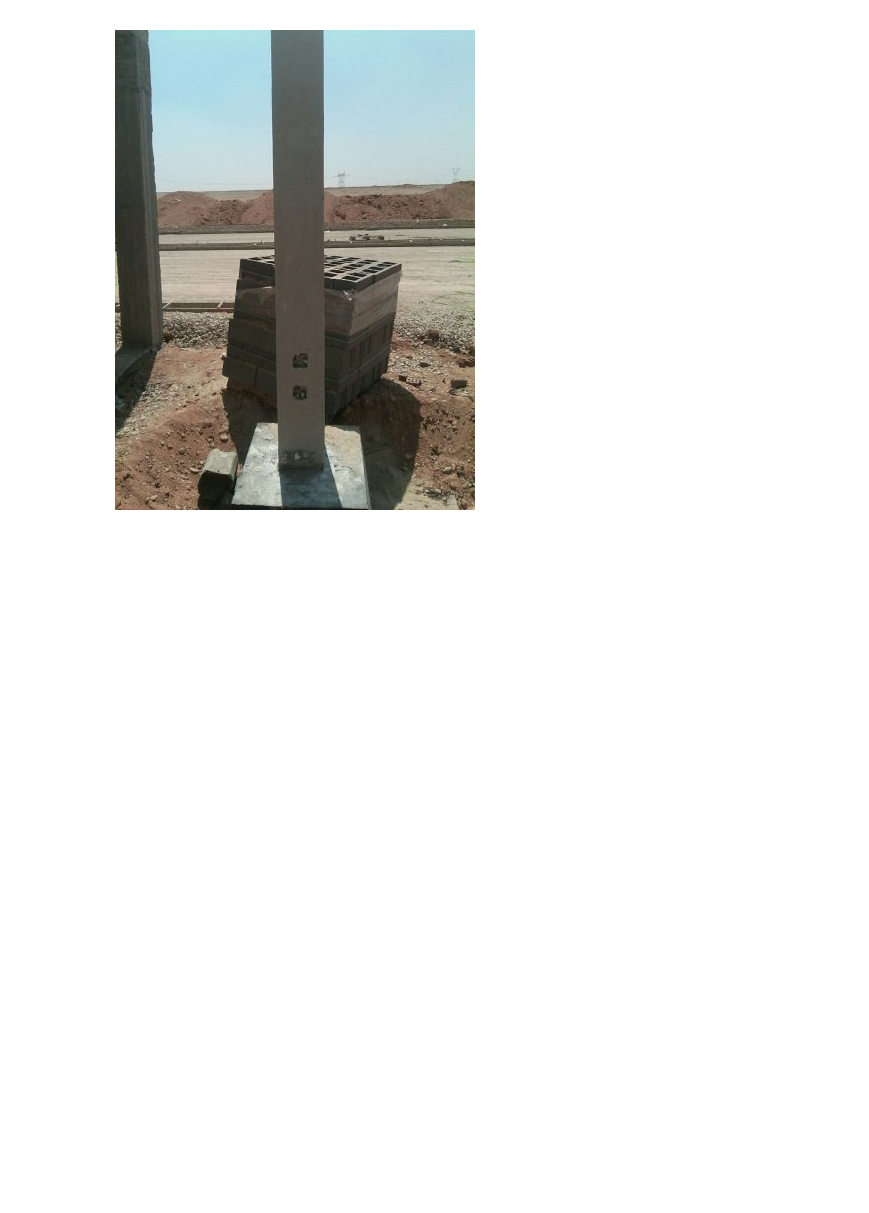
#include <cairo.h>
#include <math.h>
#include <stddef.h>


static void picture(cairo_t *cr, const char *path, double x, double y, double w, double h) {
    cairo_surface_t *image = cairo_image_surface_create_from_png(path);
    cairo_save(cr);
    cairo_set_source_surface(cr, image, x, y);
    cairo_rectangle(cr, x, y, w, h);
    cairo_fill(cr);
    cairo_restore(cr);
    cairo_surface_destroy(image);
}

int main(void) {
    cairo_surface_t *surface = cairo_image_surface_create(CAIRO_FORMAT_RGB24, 869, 1213);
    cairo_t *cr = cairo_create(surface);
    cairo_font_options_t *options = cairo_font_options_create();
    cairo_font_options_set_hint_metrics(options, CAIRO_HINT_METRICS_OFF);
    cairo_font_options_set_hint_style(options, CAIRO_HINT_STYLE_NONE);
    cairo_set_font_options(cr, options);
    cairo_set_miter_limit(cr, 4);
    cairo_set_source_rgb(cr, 1, 1, 1);
    cairo_paint(cr);
    picture(cr, "img1.png", 115, 30, 360, 480);
    cairo_surface_write_to_png(surface, "page.png");
    cairo_font_options_destroy(options);
    cairo_destroy(cr);
    cairo_surface_destroy(surface);
    return 0;
}
